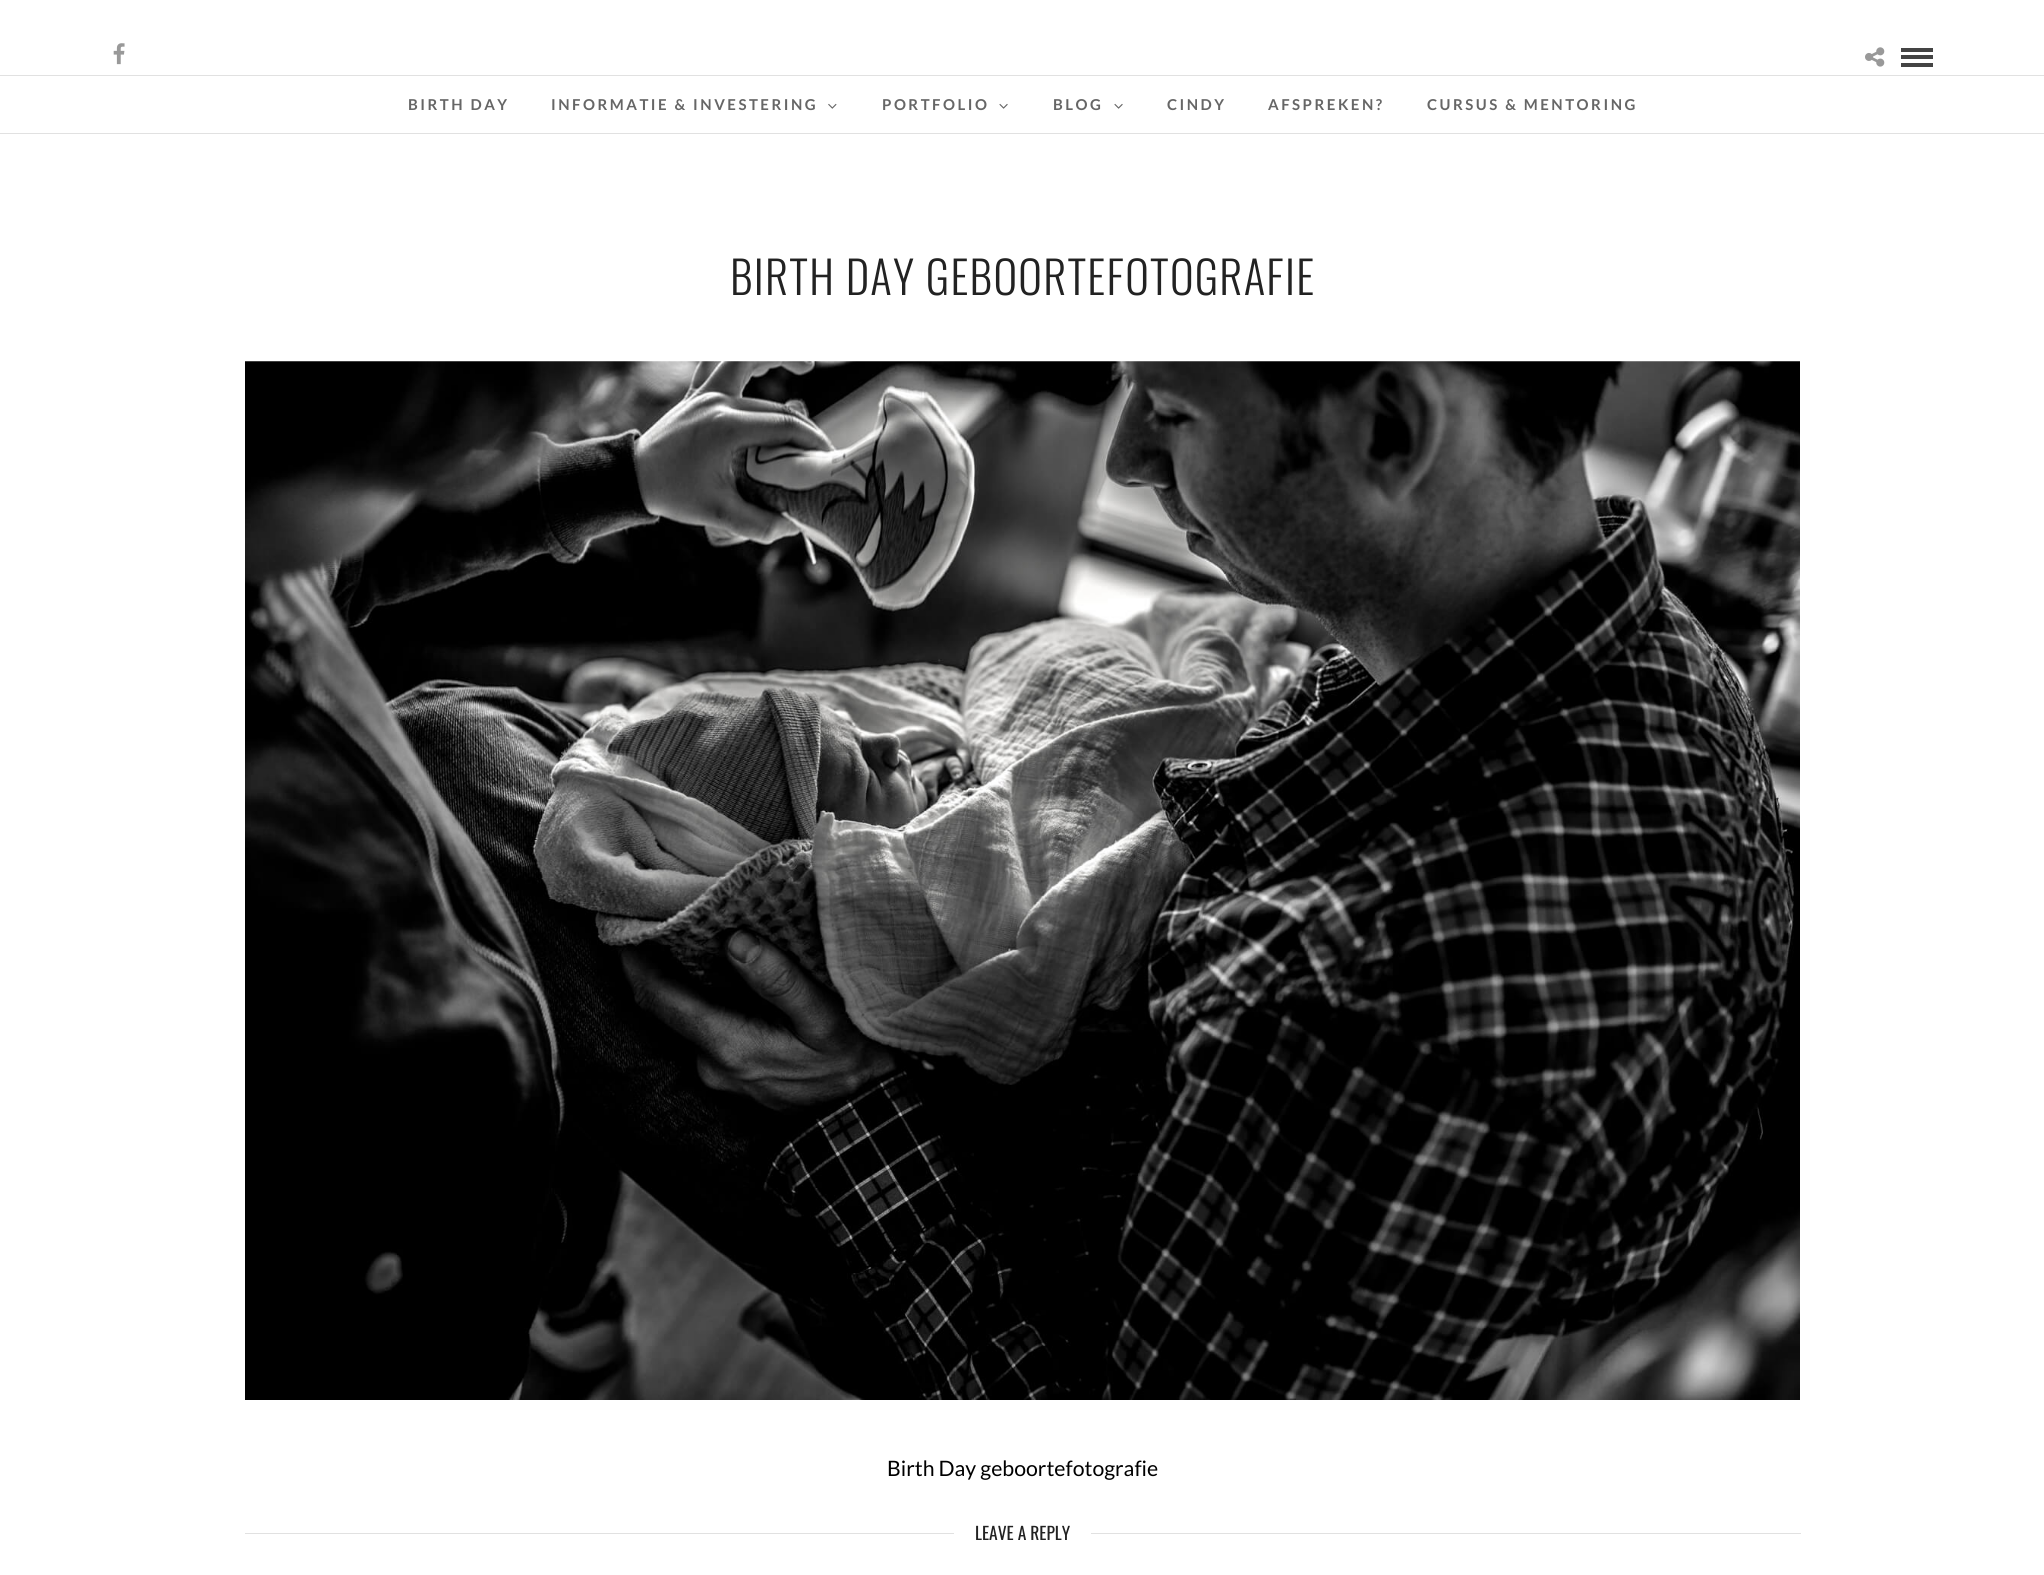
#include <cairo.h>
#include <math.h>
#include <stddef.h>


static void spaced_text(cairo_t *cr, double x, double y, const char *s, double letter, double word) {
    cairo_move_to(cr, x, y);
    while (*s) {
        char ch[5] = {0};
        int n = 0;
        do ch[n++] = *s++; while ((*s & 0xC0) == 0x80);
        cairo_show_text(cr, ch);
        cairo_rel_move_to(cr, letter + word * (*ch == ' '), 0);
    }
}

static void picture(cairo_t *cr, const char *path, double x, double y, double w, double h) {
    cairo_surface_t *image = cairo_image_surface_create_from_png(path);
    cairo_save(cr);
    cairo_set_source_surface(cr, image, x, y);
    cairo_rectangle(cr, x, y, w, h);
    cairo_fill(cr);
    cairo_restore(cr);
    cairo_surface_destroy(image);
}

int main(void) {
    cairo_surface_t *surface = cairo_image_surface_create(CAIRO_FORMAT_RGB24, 2044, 1575);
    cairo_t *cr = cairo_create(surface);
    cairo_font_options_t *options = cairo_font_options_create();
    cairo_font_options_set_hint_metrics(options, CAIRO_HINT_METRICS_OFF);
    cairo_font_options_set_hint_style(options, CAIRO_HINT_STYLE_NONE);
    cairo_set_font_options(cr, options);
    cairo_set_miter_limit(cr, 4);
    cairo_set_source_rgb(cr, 1, 1, 1);
    cairo_paint(cr);
    cairo_set_source_rgb(cr, 0.882, 0.882, 0.882);
    cairo_rectangle(cr, 0, 133, 2044, 1);
    cairo_fill(cr);
    cairo_rectangle(cr, 0, 75, 2044, 1);
    cairo_fill(cr);
    picture(cr, "img1.png", 113, 43, 12, 22);
    picture(cr, "img2.png", 1865, 47, 20, 20);
    cairo_set_source_rgb(cr, 0.267, 0.267, 0.267);
    cairo_rectangle(cr, 1901, 48, 32, 4);
    cairo_fill(cr);
    cairo_rectangle(cr, 1901, 55, 32, 4);
    cairo_fill(cr);
    cairo_rectangle(cr, 1901, 63, 32, 4);
    cairo_fill(cr);
    cairo_select_font_face(cr, "Lato", CAIRO_FONT_SLANT_NORMAL, CAIRO_FONT_WEIGHT_BOLD);
    cairo_set_font_size(cr, 15);
    cairo_set_source_rgb(cr, 0.4, 0.4, 0.4);
    spaced_text(cr, 408, 110, "BIRTH DAY", 2.5, 0);
    spaced_text(cr, 551, 110, "INFORMATIE & INVESTERING", 2.5, 0);
    picture(cr, "img3.png", 828, 103, 9, 6);
    spaced_text(cr, 882, 110, "PORTFOLIO", 2.5, 0);
    picture(cr, "img4.png", 999, 103, 9, 6);
    spaced_text(cr, 1053, 110, "BLOG", 2.5, 0);
    picture(cr, "img4.png", 1114, 103, 9, 6);
    spaced_text(cr, 1167, 110, "CINDY", 2.5, 0);
    spaced_text(cr, 1268, 110, "AFSPREKEN?", 2.5, 0);
    spaced_text(cr, 1427, 110, "CURSUS & MENTORING", 2.5, 0);
    cairo_select_font_face(cr, "Oswald Light", CAIRO_FONT_SLANT_NORMAL, CAIRO_FONT_WEIGHT_NORMAL);
    cairo_set_font_size(cr, 45);
    cairo_set_source_rgb(cr, 0.133, 0.133, 0.133);
    spaced_text(cr, 730, 295, "BIRTH DAY GEBOORTEFOTOGRAFIE", 1.25, 0);
    picture(cr, "img5.png", 245, 361, 1555, 1039);
    cairo_select_font_face(cr, "Lato", CAIRO_FONT_SLANT_NORMAL, CAIRO_FONT_WEIGHT_NORMAL);
    cairo_set_font_size(cr, 21.25);
    cairo_set_source_rgb(cr, 0, 0, 0);
    cairo_move_to(cr, 887, 1476);
    cairo_show_text(cr, "Birth Day geboortefotografie");
    cairo_set_source_rgb(cr, 0.882, 0.882, 0.882);
    cairo_rectangle(cr, 245, 1533, 1556, 1);
    cairo_fill(cr);
    cairo_set_source_rgb(cr, 1, 1, 1);
    cairo_rectangle(cr, 954, 1533, 137, 1);
    cairo_fill(cr);
    cairo_select_font_face(cr, "Oswald", CAIRO_FONT_SLANT_NORMAL, CAIRO_FONT_WEIGHT_NORMAL);
    cairo_set_font_size(cr, 17.5);
    cairo_set_source_rgb(cr, 0.133, 0.133, 0.133);
    cairo_move_to(cr, 975, 1540);
    cairo_show_text(cr, "LEAVE A REPLY");
    cairo_surface_write_to_png(surface, "page.png");
    cairo_font_options_destroy(options);
    cairo_destroy(cr);
    cairo_surface_destroy(surface);
    return 0;
}
